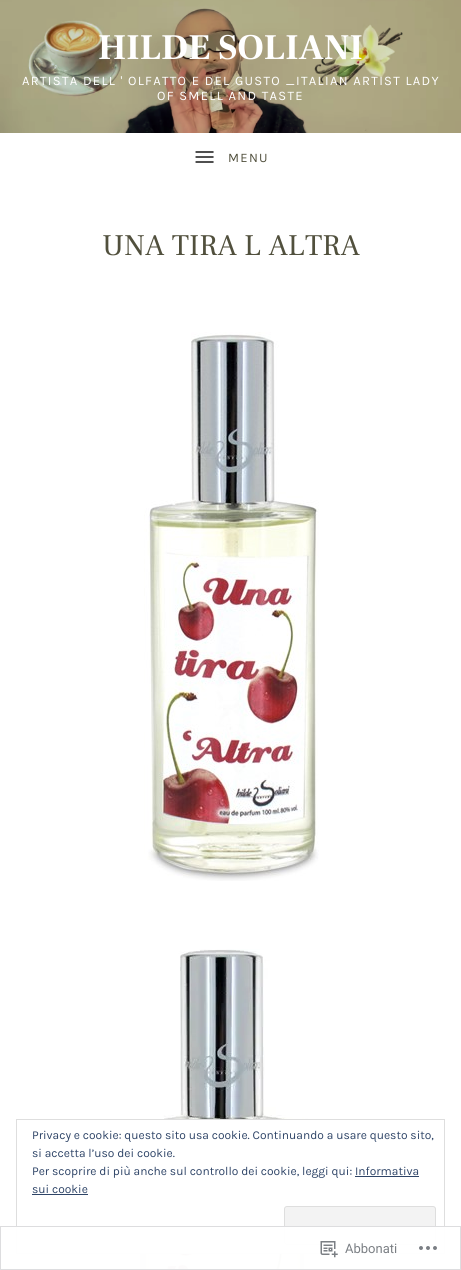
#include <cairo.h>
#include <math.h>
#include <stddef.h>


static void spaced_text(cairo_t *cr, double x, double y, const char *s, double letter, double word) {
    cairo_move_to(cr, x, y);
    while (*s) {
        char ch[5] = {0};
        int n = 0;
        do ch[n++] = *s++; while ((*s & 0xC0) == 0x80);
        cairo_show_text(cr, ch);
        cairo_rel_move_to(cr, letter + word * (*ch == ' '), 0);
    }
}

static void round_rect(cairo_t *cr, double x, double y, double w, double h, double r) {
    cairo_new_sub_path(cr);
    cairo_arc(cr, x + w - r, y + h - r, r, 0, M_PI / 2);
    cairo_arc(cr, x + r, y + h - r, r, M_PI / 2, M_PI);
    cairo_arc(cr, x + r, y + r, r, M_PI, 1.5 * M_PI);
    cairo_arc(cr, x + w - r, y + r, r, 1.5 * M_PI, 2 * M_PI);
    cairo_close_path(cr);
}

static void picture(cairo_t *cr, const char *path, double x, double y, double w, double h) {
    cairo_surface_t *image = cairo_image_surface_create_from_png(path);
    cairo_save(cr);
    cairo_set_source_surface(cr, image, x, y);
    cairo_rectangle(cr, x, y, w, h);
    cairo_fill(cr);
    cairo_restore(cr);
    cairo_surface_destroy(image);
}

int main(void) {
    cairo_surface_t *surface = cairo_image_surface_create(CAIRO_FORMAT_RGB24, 461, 1270);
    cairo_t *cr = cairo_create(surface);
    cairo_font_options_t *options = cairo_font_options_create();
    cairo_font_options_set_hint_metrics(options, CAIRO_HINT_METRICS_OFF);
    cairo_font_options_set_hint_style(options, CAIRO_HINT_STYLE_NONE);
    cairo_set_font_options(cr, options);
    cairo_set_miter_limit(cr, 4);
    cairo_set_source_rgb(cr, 1, 1, 1);
    cairo_paint(cr);
    picture(cr, "img1.png", 0, 0, 461, 133);
    cairo_select_font_face(cr, "Frank Ruhl Libre", CAIRO_FONT_SLANT_NORMAL, CAIRO_FONT_WEIGHT_BOLD);
    cairo_set_font_size(cr, 36);
    cairo_set_source_rgb(cr, 1, 1, 1);
    cairo_move_to(cr, 98, 59);
    cairo_show_text(cr, "HILDE SOLIANI");
    cairo_select_font_face(cr, "Karla", CAIRO_FONT_SLANT_NORMAL, CAIRO_FONT_WEIGHT_NORMAL);
    cairo_set_font_size(cr, 13);
    spaced_text(cr, 22, 85, "ARTISTA DELL ' OLFATTO E DEL GUSTO _ITALIAN ARTIST LADY", 1.3, 0);
    spaced_text(cr, 157, 100, "OF SMELL AND TASTE", 1.3, 0);
    picture(cr, "img2.png", 195, 151, 19, 12);
    cairo_set_source_rgb(cr, 0.318, 0.314, 0.239);
    spaced_text(cr, 228, 162, "MENU", 1.3, 0);
    cairo_select_font_face(cr, "Frank Ruhl Libre", CAIRO_FONT_SLANT_NORMAL, CAIRO_FONT_WEIGHT_NORMAL);
    cairo_set_font_size(cr, 30);
    cairo_move_to(cr, 102, 255);
    cairo_show_text(cr, "UNA TIRA L ALTRA");
    picture(cr, "img3.png", 144, 332, 175, 549);
    picture(cr, "img4.png", 136, 949, 172, 321);
    cairo_set_source_rgb(cr, 1, 1, 1);
    cairo_rectangle(cr, 136, 1120, 172, 133);
    cairo_fill(cr);
    cairo_rectangle(cr, 16.5, 1119.5, 428, 134);
    cairo_set_source_rgb(cr, 0.871, 0.871, 0.871);
    cairo_set_line_width(cr, 1);
    cairo_stroke(cr);
    cairo_select_font_face(cr, "Karla", CAIRO_FONT_SLANT_NORMAL, CAIRO_FONT_WEIGHT_NORMAL);
    cairo_set_font_size(cr, 12);
    cairo_set_source_rgb(cr, 0.18, 0.267, 0.404);
    cairo_move_to(cr, 32, 1139);
    cairo_show_text(cr, "Privacy e cookie: questo sito usa cookie. Continuando a usare questo sito,");
    cairo_move_to(cr, 32, 1157);
    cairo_show_text(cr, "si accetta l’uso dei cookie.");
    cairo_move_to(cr, 32, 1175);
    cairo_show_text(cr, "Per scoprire di più anche sul controllo dei cookie, leggi qui: Informativa");
    cairo_move_to(cr, 32, 1193);
    cairo_show_text(cr, "sui cookie");
    cairo_rectangle(cr, 355, 1176, 64, 1);
    cairo_fill(cr);
    cairo_rectangle(cr, 32, 1194, 56, 1);
    cairo_fill(cr);
    cairo_set_source_rgb(cr, 0.953, 0.953, 0.953);
    round_rect(cr, 284.5, 1206.5, 151, 38, 2.5);
    cairo_fill_preserve(cr);
    cairo_set_source_rgb(cr, 0.871, 0.871, 0.871);
    cairo_stroke(cr);
    cairo_set_source_rgba(cr, 1, 1, 1, 0.98);
    cairo_rectangle(cr, 16, 1226, 429, 44);
    cairo_fill(cr);
    cairo_rectangle(cr, 0.5, 1226.5, 460, 43);
    cairo_set_source_rgba(cr, 0.863, 0.863, 0.871, 0.98);
    cairo_stroke(cr);
    picture(cr, "img5.png", 320, 1241, 18, 17);
    cairo_select_font_face(cr, "Roboto", CAIRO_FONT_SLANT_NORMAL, CAIRO_FONT_WEIGHT_NORMAL);
    cairo_set_font_size(cr, 13);
    cairo_set_source_rgb(cr, 0.482, 0.498, 0.518);
    cairo_move_to(cr, 345, 1253);
    cairo_show_text(cr, "Abbonati");
    picture(cr, "img6.png", 419, 1246, 18, 4);
    cairo_surface_write_to_png(surface, "page.png");
    cairo_font_options_destroy(options);
    cairo_destroy(cr);
    cairo_surface_destroy(surface);
    return 0;
}
